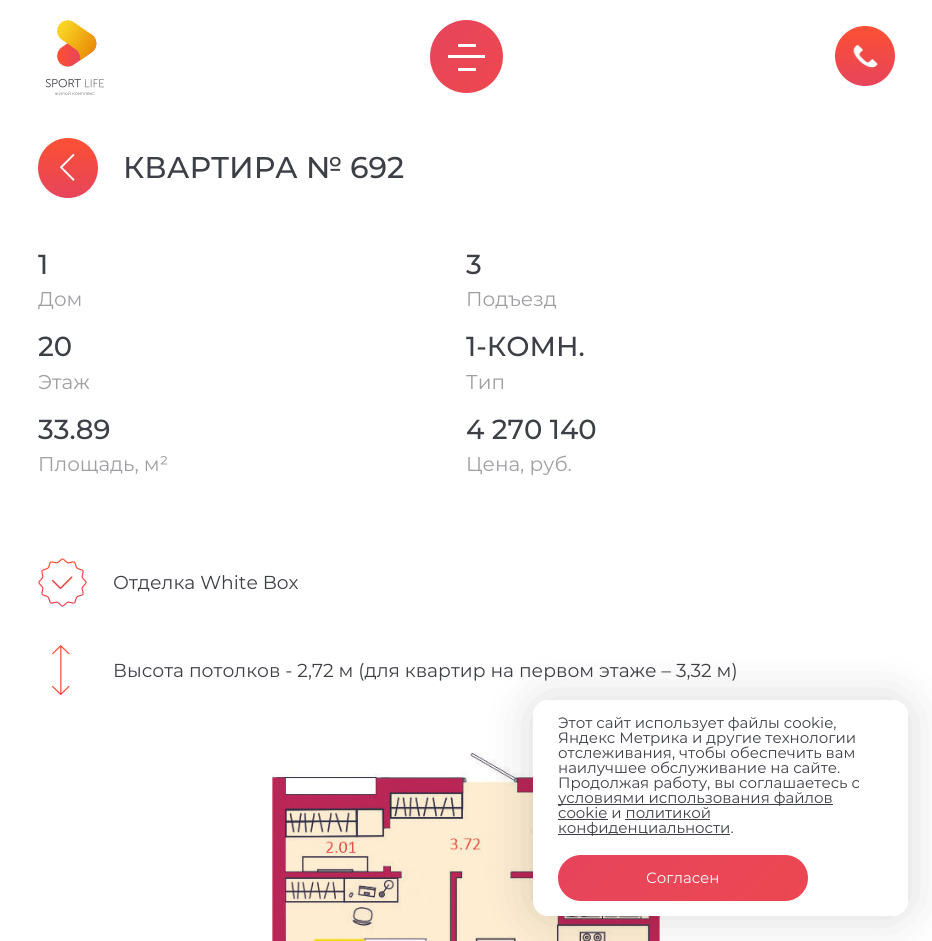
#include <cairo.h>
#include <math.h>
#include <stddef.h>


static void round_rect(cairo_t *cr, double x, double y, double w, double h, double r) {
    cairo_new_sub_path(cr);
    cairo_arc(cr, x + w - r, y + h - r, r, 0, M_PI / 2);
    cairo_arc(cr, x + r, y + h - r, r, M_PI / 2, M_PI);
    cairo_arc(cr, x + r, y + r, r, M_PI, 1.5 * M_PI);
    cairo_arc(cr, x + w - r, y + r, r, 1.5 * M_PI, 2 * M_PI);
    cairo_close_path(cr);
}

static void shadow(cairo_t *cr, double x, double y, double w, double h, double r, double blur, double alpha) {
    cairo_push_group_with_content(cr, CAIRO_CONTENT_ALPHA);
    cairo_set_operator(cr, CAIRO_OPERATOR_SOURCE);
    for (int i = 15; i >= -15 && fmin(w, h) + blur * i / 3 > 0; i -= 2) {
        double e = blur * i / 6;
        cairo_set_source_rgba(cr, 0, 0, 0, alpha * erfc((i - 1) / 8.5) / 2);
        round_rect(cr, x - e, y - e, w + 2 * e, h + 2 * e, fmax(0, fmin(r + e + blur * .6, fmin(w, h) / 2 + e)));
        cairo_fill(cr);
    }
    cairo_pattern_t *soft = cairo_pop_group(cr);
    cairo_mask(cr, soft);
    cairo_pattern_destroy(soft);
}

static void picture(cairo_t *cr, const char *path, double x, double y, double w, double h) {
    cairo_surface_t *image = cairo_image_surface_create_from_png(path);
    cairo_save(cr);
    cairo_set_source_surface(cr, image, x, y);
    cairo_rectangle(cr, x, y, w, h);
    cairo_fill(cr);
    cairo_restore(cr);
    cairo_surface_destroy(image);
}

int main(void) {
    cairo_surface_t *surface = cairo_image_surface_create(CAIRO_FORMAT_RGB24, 932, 941);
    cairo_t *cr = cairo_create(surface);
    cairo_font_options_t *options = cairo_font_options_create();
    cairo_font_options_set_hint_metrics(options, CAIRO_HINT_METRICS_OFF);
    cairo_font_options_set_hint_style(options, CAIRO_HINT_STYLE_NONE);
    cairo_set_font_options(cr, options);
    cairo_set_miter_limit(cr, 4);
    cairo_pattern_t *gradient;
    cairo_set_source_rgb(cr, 1, 1, 1);
    cairo_paint(cr);
    picture(cr, "img1.png", 45, 20, 59, 75);
    gradient = cairo_pattern_create_linear(684, 201, 466, -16);
    cairo_pattern_add_color_stop_rgba(gradient, 0, 0.988, 0.314, 0.204, 1);
    cairo_pattern_add_color_stop_rgba(gradient, 1, 0.902, 0.267, 0.361, 1);
    cairo_set_source(cr, gradient);
    cairo_pattern_destroy(gradient);
    cairo_arc(cr, 466.5, 56.5, 36.5, 0, 2 * M_PI);
    cairo_fill(cr);
    cairo_set_source_rgb(cr, 1, 1, 1);
    cairo_rectangle(cr, 458, 44, 18, 3);
    cairo_fill(cr);
    cairo_rectangle(cr, 448, 55, 37, 3);
    cairo_fill(cr);
    cairo_rectangle(cr, 458, 68, 18, 3);
    cairo_fill(cr);
    gradient = cairo_pattern_create_linear(865, 26, 865, 86);
    cairo_pattern_add_color_stop_rgba(gradient, 0, 0.988, 0.314, 0.204, 1);
    cairo_pattern_add_color_stop_rgba(gradient, 1, 0.902, 0.267, 0.361, 1);
    cairo_set_source(cr, gradient);
    cairo_pattern_destroy(gradient);
    cairo_arc(cr, 865, 56, 30, 0, 2 * M_PI);
    cairo_fill(cr);
    picture(cr, "img2.png", 853, 45, 25, 23);
    gradient = cairo_pattern_create_linear(68, 138, 68, 198);
    cairo_pattern_add_color_stop_rgba(gradient, 0, 0.988, 0.314, 0.204, 1);
    cairo_pattern_add_color_stop_rgba(gradient, 1, 0.902, 0.267, 0.361, 1);
    cairo_set_source(cr, gradient);
    cairo_pattern_destroy(gradient);
    cairo_arc(cr, 68, 168, 30, 0, 2 * M_PI);
    cairo_fill(cr);
    picture(cr, "img3.png", 60, 154, 15, 27);
    cairo_select_font_face(cr, "Montserrat Medium", CAIRO_FONT_SLANT_NORMAL, CAIRO_FONT_WEIGHT_NORMAL);
    cairo_set_font_size(cr, 30);
    cairo_set_source_rgb(cr, 0.239, 0.247, 0.275);
    cairo_move_to(cr, 123, 178);
    cairo_show_text(cr, "КВАРТИРА № 692");
    cairo_set_font_size(cr, 27.5);
    cairo_move_to(cr, 38, 274);
    cairo_show_text(cr, "1");
    cairo_select_font_face(cr, "Montserrat", CAIRO_FONT_SLANT_NORMAL, CAIRO_FONT_WEIGHT_NORMAL);
    cairo_set_font_size(cr, 20);
    cairo_set_source_rgb(cr, 0.62, 0.624, 0.639);
    cairo_move_to(cr, 38, 306);
    cairo_show_text(cr, "Дом");
    cairo_select_font_face(cr, "Montserrat Medium", CAIRO_FONT_SLANT_NORMAL, CAIRO_FONT_WEIGHT_NORMAL);
    cairo_set_font_size(cr, 27.5);
    cairo_set_source_rgb(cr, 0.239, 0.247, 0.275);
    cairo_move_to(cr, 466, 274);
    cairo_show_text(cr, "3");
    cairo_select_font_face(cr, "Montserrat", CAIRO_FONT_SLANT_NORMAL, CAIRO_FONT_WEIGHT_NORMAL);
    cairo_set_font_size(cr, 20);
    cairo_set_source_rgb(cr, 0.62, 0.624, 0.639);
    cairo_move_to(cr, 466, 306);
    cairo_show_text(cr, "Подъезд");
    cairo_select_font_face(cr, "Montserrat Medium", CAIRO_FONT_SLANT_NORMAL, CAIRO_FONT_WEIGHT_NORMAL);
    cairo_set_font_size(cr, 27.5);
    cairo_set_source_rgb(cr, 0.239, 0.247, 0.275);
    cairo_move_to(cr, 38, 356);
    cairo_show_text(cr, "20");
    cairo_select_font_face(cr, "Montserrat", CAIRO_FONT_SLANT_NORMAL, CAIRO_FONT_WEIGHT_NORMAL);
    cairo_set_font_size(cr, 20);
    cairo_set_source_rgb(cr, 0.62, 0.624, 0.639);
    cairo_move_to(cr, 38, 389);
    cairo_show_text(cr, "Этаж");
    cairo_select_font_face(cr, "Montserrat Medium", CAIRO_FONT_SLANT_NORMAL, CAIRO_FONT_WEIGHT_NORMAL);
    cairo_set_font_size(cr, 27.5);
    cairo_set_source_rgb(cr, 0.239, 0.247, 0.275);
    cairo_move_to(cr, 466, 356);
    cairo_show_text(cr, "1-КОМН.");
    cairo_select_font_face(cr, "Montserrat", CAIRO_FONT_SLANT_NORMAL, CAIRO_FONT_WEIGHT_NORMAL);
    cairo_set_font_size(cr, 20);
    cairo_set_source_rgb(cr, 0.62, 0.624, 0.639);
    cairo_move_to(cr, 466, 389);
    cairo_show_text(cr, "Тип");
    cairo_select_font_face(cr, "Montserrat Medium", CAIRO_FONT_SLANT_NORMAL, CAIRO_FONT_WEIGHT_NORMAL);
    cairo_set_font_size(cr, 27.5);
    cairo_set_source_rgb(cr, 0.239, 0.247, 0.275);
    cairo_move_to(cr, 38, 439);
    cairo_show_text(cr, "33.89");
    cairo_select_font_face(cr, "Montserrat", CAIRO_FONT_SLANT_NORMAL, CAIRO_FONT_WEIGHT_NORMAL);
    cairo_set_font_size(cr, 20);
    cairo_set_source_rgb(cr, 0.62, 0.624, 0.639);
    cairo_move_to(cr, 38, 471);
    cairo_show_text(cr, "Площадь, м²");
    cairo_select_font_face(cr, "Montserrat Medium", CAIRO_FONT_SLANT_NORMAL, CAIRO_FONT_WEIGHT_NORMAL);
    cairo_set_font_size(cr, 27.5);
    cairo_set_source_rgb(cr, 0.239, 0.247, 0.275);
    cairo_move_to(cr, 466, 439);
    cairo_show_text(cr, "4 270 140");
    cairo_select_font_face(cr, "Montserrat", CAIRO_FONT_SLANT_NORMAL, CAIRO_FONT_WEIGHT_NORMAL);
    cairo_set_font_size(cr, 20);
    cairo_set_source_rgb(cr, 0.62, 0.624, 0.639);
    cairo_move_to(cr, 466, 471);
    cairo_show_text(cr, "Цена, руб.");
    picture(cr, "img4.png", 38, 558, 49, 49);
    cairo_set_font_size(cr, 18.75);
    cairo_set_source_rgb(cr, 0.239, 0.247, 0.275);
    cairo_move_to(cr, 113, 589);
    cairo_show_text(cr, "Отделка White Box");
    picture(cr, "img5.png", 52, 645, 18, 50);
    cairo_move_to(cr, 113, 677);
    cairo_show_text(cr, "Высота потолков - 2,72 м (для квартир на первом этаже – 3,32 м)");
    picture(cr, "img6.png", 272, 752, 388, 189);
    cairo_set_source_rgb(cr, 0, 0, 0);
    shadow(cr, 533, 700, 375, 216, 15, 25, 0.15);
    cairo_set_source_rgb(cr, 1, 1, 1);
    round_rect(cr, 533, 700, 375, 216, 15);
    cairo_fill(cr);
    cairo_set_font_size(cr, 15);
    cairo_set_source_rgb(cr, 0.239, 0.247, 0.275);
    cairo_move_to(cr, 558, 728);
    cairo_show_text(cr, "Этот сайт использует файлы cookie,");
    cairo_move_to(cr, 558, 743);
    cairo_show_text(cr, "Яндекс Метрика и другие технологии");
    cairo_move_to(cr, 558, 758);
    cairo_show_text(cr, "отслеживания, чтобы обеспечить вам");
    cairo_move_to(cr, 558, 773);
    cairo_show_text(cr, "наилучшее обслуживание на сайте.");
    cairo_move_to(cr, 558, 788);
    cairo_show_text(cr, "Продолжая работу, вы соглашаетесь с");
    cairo_rectangle(cr, 558, 804, 275, 1);
    cairo_fill(cr);
    cairo_move_to(cr, 558, 803);
    cairo_show_text(cr, "условиями использования файлов");
    cairo_move_to(cr, 558, 818);
    cairo_show_text(cr, "cookie и политикой");
    cairo_rectangle(cr, 558, 819, 50, 1);
    cairo_fill(cr);
    cairo_rectangle(cr, 558, 834, 172, 1);
    cairo_fill(cr);
    cairo_move_to(cr, 558, 833);
    cairo_show_text(cr, "конфиденциальности.");
    cairo_rectangle(cr, 625, 819, 85, 1);
    cairo_fill(cr);
    gradient = cairo_pattern_create_linear(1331, 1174, 784, 628);
    cairo_pattern_add_color_stop_rgba(gradient, 0, 0.988, 0.314, 0.204, 1);
    cairo_pattern_add_color_stop_rgba(gradient, 1, 0.902, 0.267, 0.361, 1);
    cairo_set_source(cr, gradient);
    cairo_pattern_destroy(gradient);
    round_rect(cr, 558, 855, 250, 46, 23);
    cairo_fill(cr);
    cairo_set_source_rgb(cr, 1, 1, 1);
    cairo_move_to(cr, 646, 883);
    cairo_show_text(cr, "Согласен");
    cairo_surface_write_to_png(surface, "page.png");
    cairo_font_options_destroy(options);
    cairo_destroy(cr);
    cairo_surface_destroy(surface);
    return 0;
}
